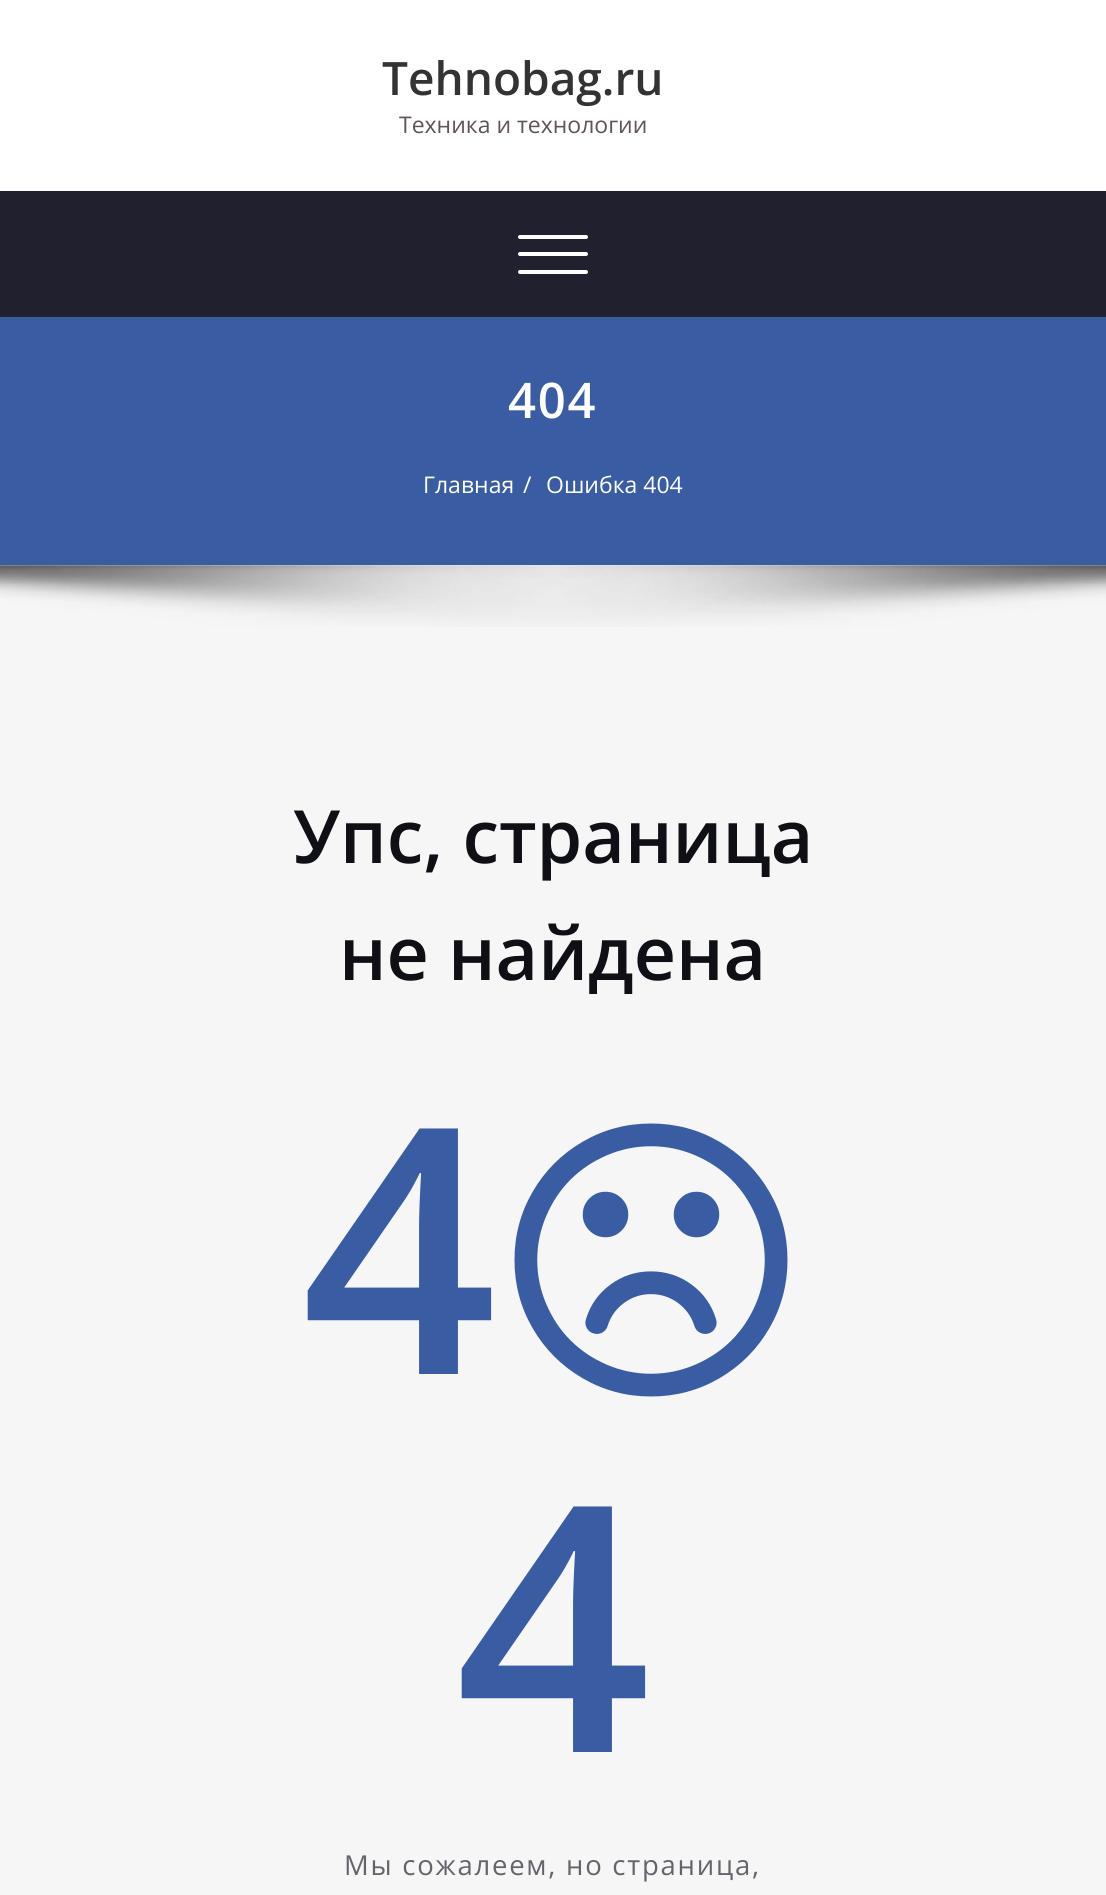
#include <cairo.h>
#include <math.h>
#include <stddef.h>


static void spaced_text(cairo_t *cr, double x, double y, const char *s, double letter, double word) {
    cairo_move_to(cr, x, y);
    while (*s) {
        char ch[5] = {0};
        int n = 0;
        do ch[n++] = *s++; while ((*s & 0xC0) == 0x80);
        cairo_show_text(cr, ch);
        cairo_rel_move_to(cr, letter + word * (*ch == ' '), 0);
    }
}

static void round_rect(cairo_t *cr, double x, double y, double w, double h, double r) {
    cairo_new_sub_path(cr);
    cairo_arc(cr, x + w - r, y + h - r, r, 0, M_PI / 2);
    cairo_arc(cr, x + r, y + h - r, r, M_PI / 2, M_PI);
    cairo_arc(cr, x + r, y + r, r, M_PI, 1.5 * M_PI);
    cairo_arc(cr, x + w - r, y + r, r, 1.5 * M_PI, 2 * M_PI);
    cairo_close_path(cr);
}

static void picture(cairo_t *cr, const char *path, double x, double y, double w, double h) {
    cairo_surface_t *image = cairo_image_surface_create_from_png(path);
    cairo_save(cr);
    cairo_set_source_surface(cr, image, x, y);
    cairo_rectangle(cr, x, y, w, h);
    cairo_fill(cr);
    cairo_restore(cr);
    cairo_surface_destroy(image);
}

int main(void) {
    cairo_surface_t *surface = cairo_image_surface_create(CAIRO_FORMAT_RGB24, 1106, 1895);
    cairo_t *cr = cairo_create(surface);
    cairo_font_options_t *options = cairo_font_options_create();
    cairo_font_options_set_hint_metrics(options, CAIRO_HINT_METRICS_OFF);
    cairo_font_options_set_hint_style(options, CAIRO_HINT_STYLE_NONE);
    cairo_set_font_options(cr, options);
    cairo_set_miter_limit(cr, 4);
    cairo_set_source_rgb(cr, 0.961, 0.961, 0.961);
    cairo_paint(cr);
    cairo_set_source_rgb(cr, 1, 1, 1);
    cairo_rectangle(cr, 0, 0, 1106, 191);
    cairo_fill(cr);
    cairo_select_font_face(cr, "Open Sans SemiBold", CAIRO_FONT_SLANT_NORMAL, CAIRO_FONT_WEIGHT_NORMAL);
    cairo_set_font_size(cr, 46);
    cairo_set_source_rgb(cr, 0.2, 0.2, 0.2);
    cairo_move_to(cr, 382, 95);
    cairo_show_text(cr, "Tehnobag.ru");
    cairo_select_font_face(cr, "Open Sans", CAIRO_FONT_SLANT_NORMAL, CAIRO_FONT_WEIGHT_NORMAL);
    cairo_set_font_size(cr, 23);
    cairo_set_source_rgb(cr, 0.373, 0.333, 0.333);
    cairo_move_to(cr, 399, 133);
    cairo_show_text(cr, "Техника и технологии");
    cairo_set_source_rgb(cr, 0.129, 0.125, 0.18);
    cairo_rectangle(cr, 0, 191, 1106, 126);
    cairo_fill(cr);
    cairo_set_source_rgb(cr, 1, 1, 1);
    round_rect(cr, 518, 235, 70, 4, 2);
    cairo_fill(cr);
    round_rect(cr, 518, 252, 70, 4, 2);
    cairo_fill(cr);
    round_rect(cr, 518, 270, 70, 4, 2);
    cairo_fill(cr);
    cairo_set_source_rgb(cr, 0.224, 0.361, 0.639);
    cairo_rectangle(cr, 0, 317, 1106, 248);
    cairo_fill(cr);
    cairo_select_font_face(cr, "Open Sans SemiBold", CAIRO_FONT_SLANT_NORMAL, CAIRO_FONT_WEIGHT_NORMAL);
    cairo_set_font_size(cr, 49);
    cairo_set_source_rgb(cr, 1, 1, 1);
    spaced_text(cr, 508, 418, "404", 1.75, 0);
    cairo_select_font_face(cr, "Open Sans", CAIRO_FONT_SLANT_NORMAL, CAIRO_FONT_WEIGHT_NORMAL);
    cairo_set_font_size(cr, 23);
    cairo_move_to(cr, 423, 493);
    cairo_show_text(cr, "Главная");
    cairo_move_to(cr, 523, 493);
    cairo_show_text(cr, "/");
    cairo_move_to(cr, 546, 493);
    cairo_show_text(cr, "Ошибка 404");
    picture(cr, "img1.png", 0, 565, 1106, 62);
    cairo_select_font_face(cr, "Open Sans SemiBold", CAIRO_FONT_SLANT_NORMAL, CAIRO_FONT_WEIGHT_NORMAL);
    cairo_set_font_size(cr, 73.5);
    cairo_set_source_rgb(cr, 0.059, 0.059, 0.086);
    cairo_move_to(cr, 293, 863);
    cairo_show_text(cr, "Упс, страница");
    cairo_move_to(cr, 339, 980);
    cairo_show_text(cr, "не найдена");
    cairo_set_font_size(cr, 343);
    cairo_set_source_rgb(cr, 0.224, 0.361, 0.639);
    cairo_move_to(cr, 301, 1374);
    cairo_show_text(cr, "4");
    picture(cr, "img2.png", 514, 1123, 274, 274);
    cairo_move_to(cr, 455, 1752);
    cairo_show_text(cr, "4");
    cairo_select_font_face(cr, "Open Sans", CAIRO_FONT_SLANT_NORMAL, CAIRO_FONT_WEIGHT_NORMAL);
    cairo_set_font_size(cr, 27.5);
    cairo_set_source_rgb(cr, 0.392, 0.392, 0.427);
    spaced_text(cr, 344, 1875, "Мы сожалеем, но страница,", 1.75, 0);
    cairo_surface_write_to_png(surface, "page.png");
    cairo_font_options_destroy(options);
    cairo_destroy(cr);
    cairo_surface_destroy(surface);
    return 0;
}
